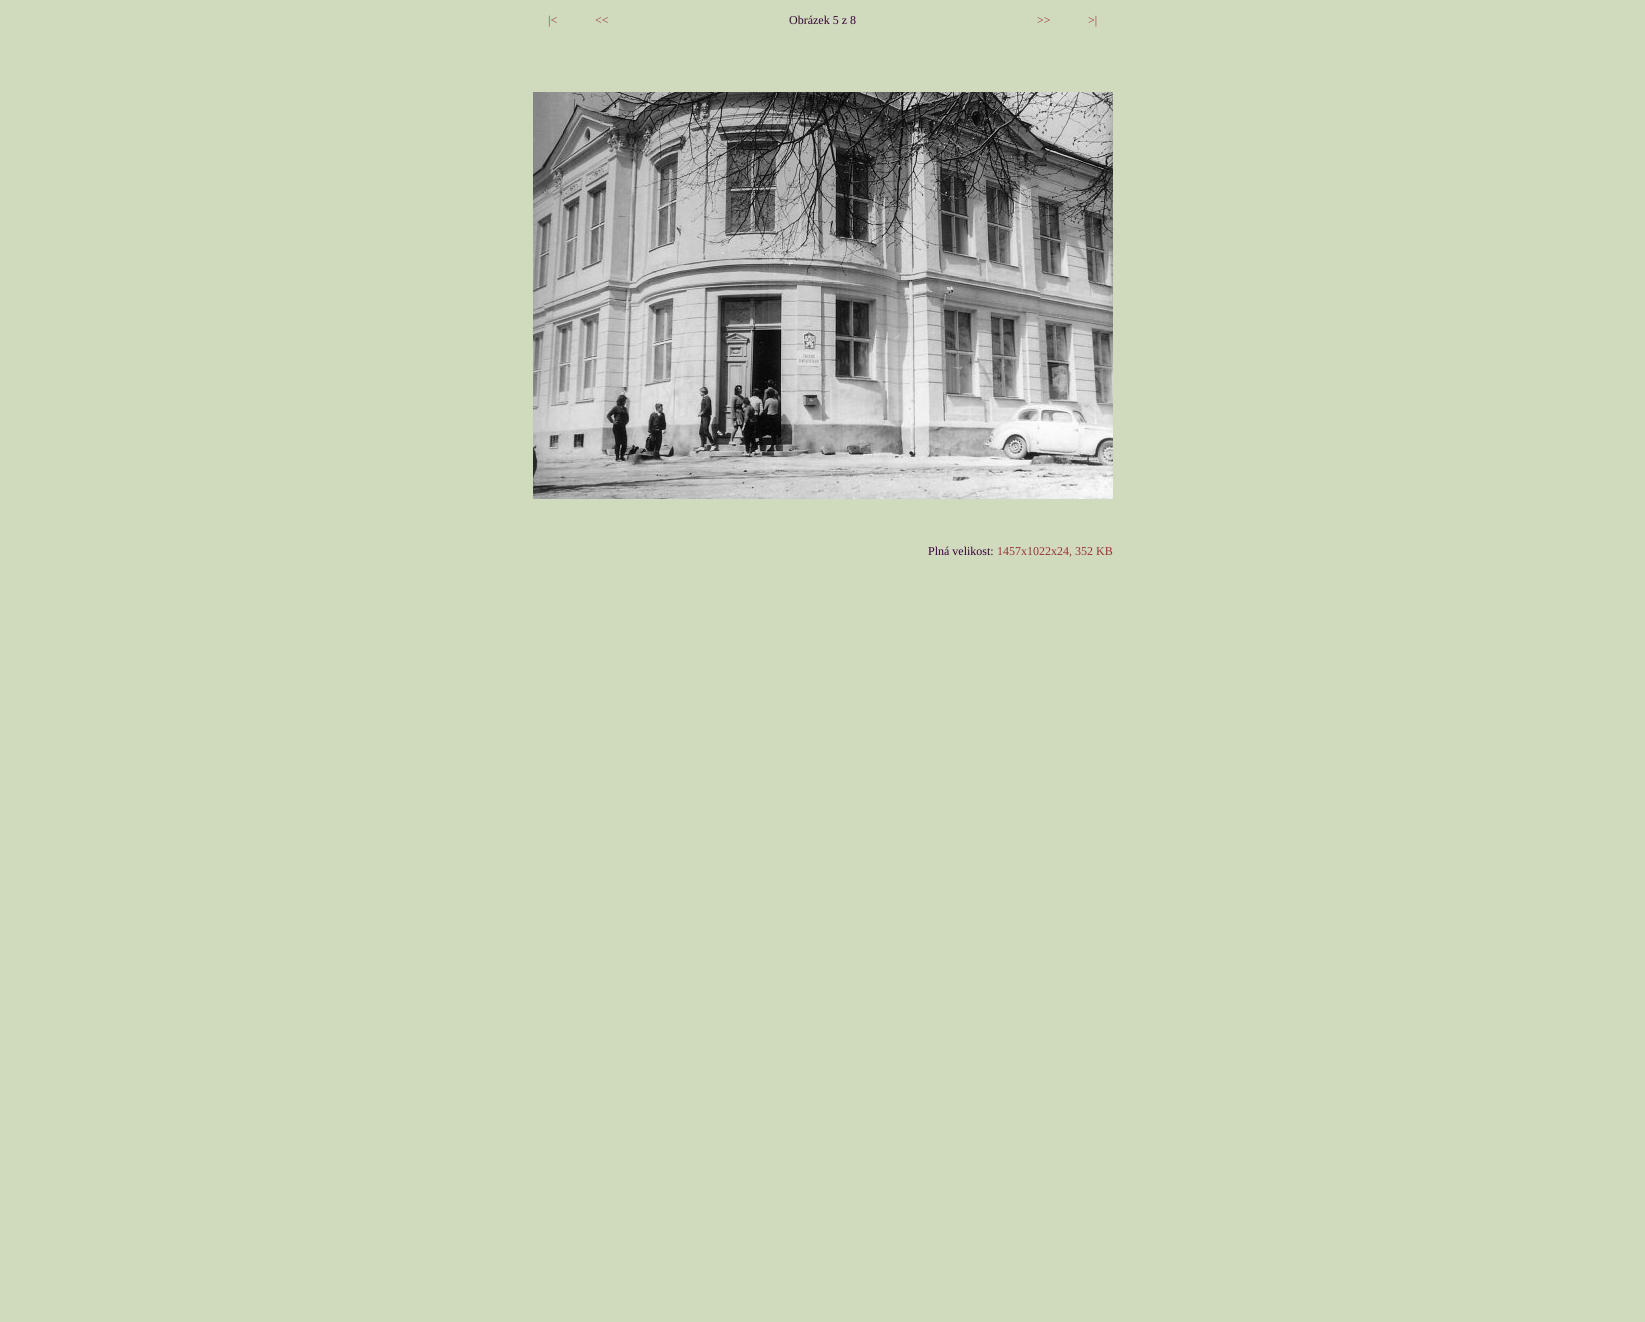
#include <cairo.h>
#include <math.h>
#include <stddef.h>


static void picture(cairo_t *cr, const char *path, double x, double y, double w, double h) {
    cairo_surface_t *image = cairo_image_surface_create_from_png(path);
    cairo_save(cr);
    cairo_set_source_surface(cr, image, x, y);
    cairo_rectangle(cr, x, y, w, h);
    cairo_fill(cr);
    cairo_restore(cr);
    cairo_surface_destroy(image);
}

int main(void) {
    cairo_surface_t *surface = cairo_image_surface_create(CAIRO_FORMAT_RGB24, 1645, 1322);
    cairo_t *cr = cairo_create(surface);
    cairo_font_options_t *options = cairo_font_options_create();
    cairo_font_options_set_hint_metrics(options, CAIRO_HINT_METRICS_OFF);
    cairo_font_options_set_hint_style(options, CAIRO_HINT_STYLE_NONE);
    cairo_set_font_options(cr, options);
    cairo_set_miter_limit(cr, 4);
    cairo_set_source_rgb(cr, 0.816, 0.859, 0.745);
    cairo_paint(cr);
    cairo_select_font_face(cr, "Liberation Serif", CAIRO_FONT_SLANT_NORMAL, CAIRO_FONT_WEIGHT_NORMAL);
    cairo_set_font_size(cr, 12);
    cairo_set_source_rgb(cr, 0.6, 0.2, 0.2);
    cairo_move_to(cr, 548, 24);
    cairo_show_text(cr, "|<");
    cairo_move_to(cr, 595, 24);
    cairo_show_text(cr, "<<");
    cairo_set_source_rgb(cr, 0.2, 0, 0.2);
    cairo_move_to(cr, 789, 24);
    cairo_show_text(cr, "Obrázek 5 z 8");
    cairo_set_source_rgb(cr, 0.6, 0.2, 0.2);
    cairo_move_to(cr, 1037, 24);
    cairo_show_text(cr, ">>");
    cairo_move_to(cr, 1088, 24);
    cairo_show_text(cr, ">|");
    picture(cr, "img1.png", 533, 92, 580, 407);
    cairo_set_source_rgb(cr, 0.2, 0, 0.2);
    cairo_move_to(cr, 928, 555);
    cairo_show_text(cr, "Plná velikost:");
    cairo_set_source_rgb(cr, 0.6, 0.2, 0.2);
    cairo_move_to(cr, 997, 555);
    cairo_show_text(cr, "1457x1022x24, 352 KB");
    cairo_surface_write_to_png(surface, "page.png");
    cairo_font_options_destroy(options);
    cairo_destroy(cr);
    cairo_surface_destroy(surface);
    return 0;
}
